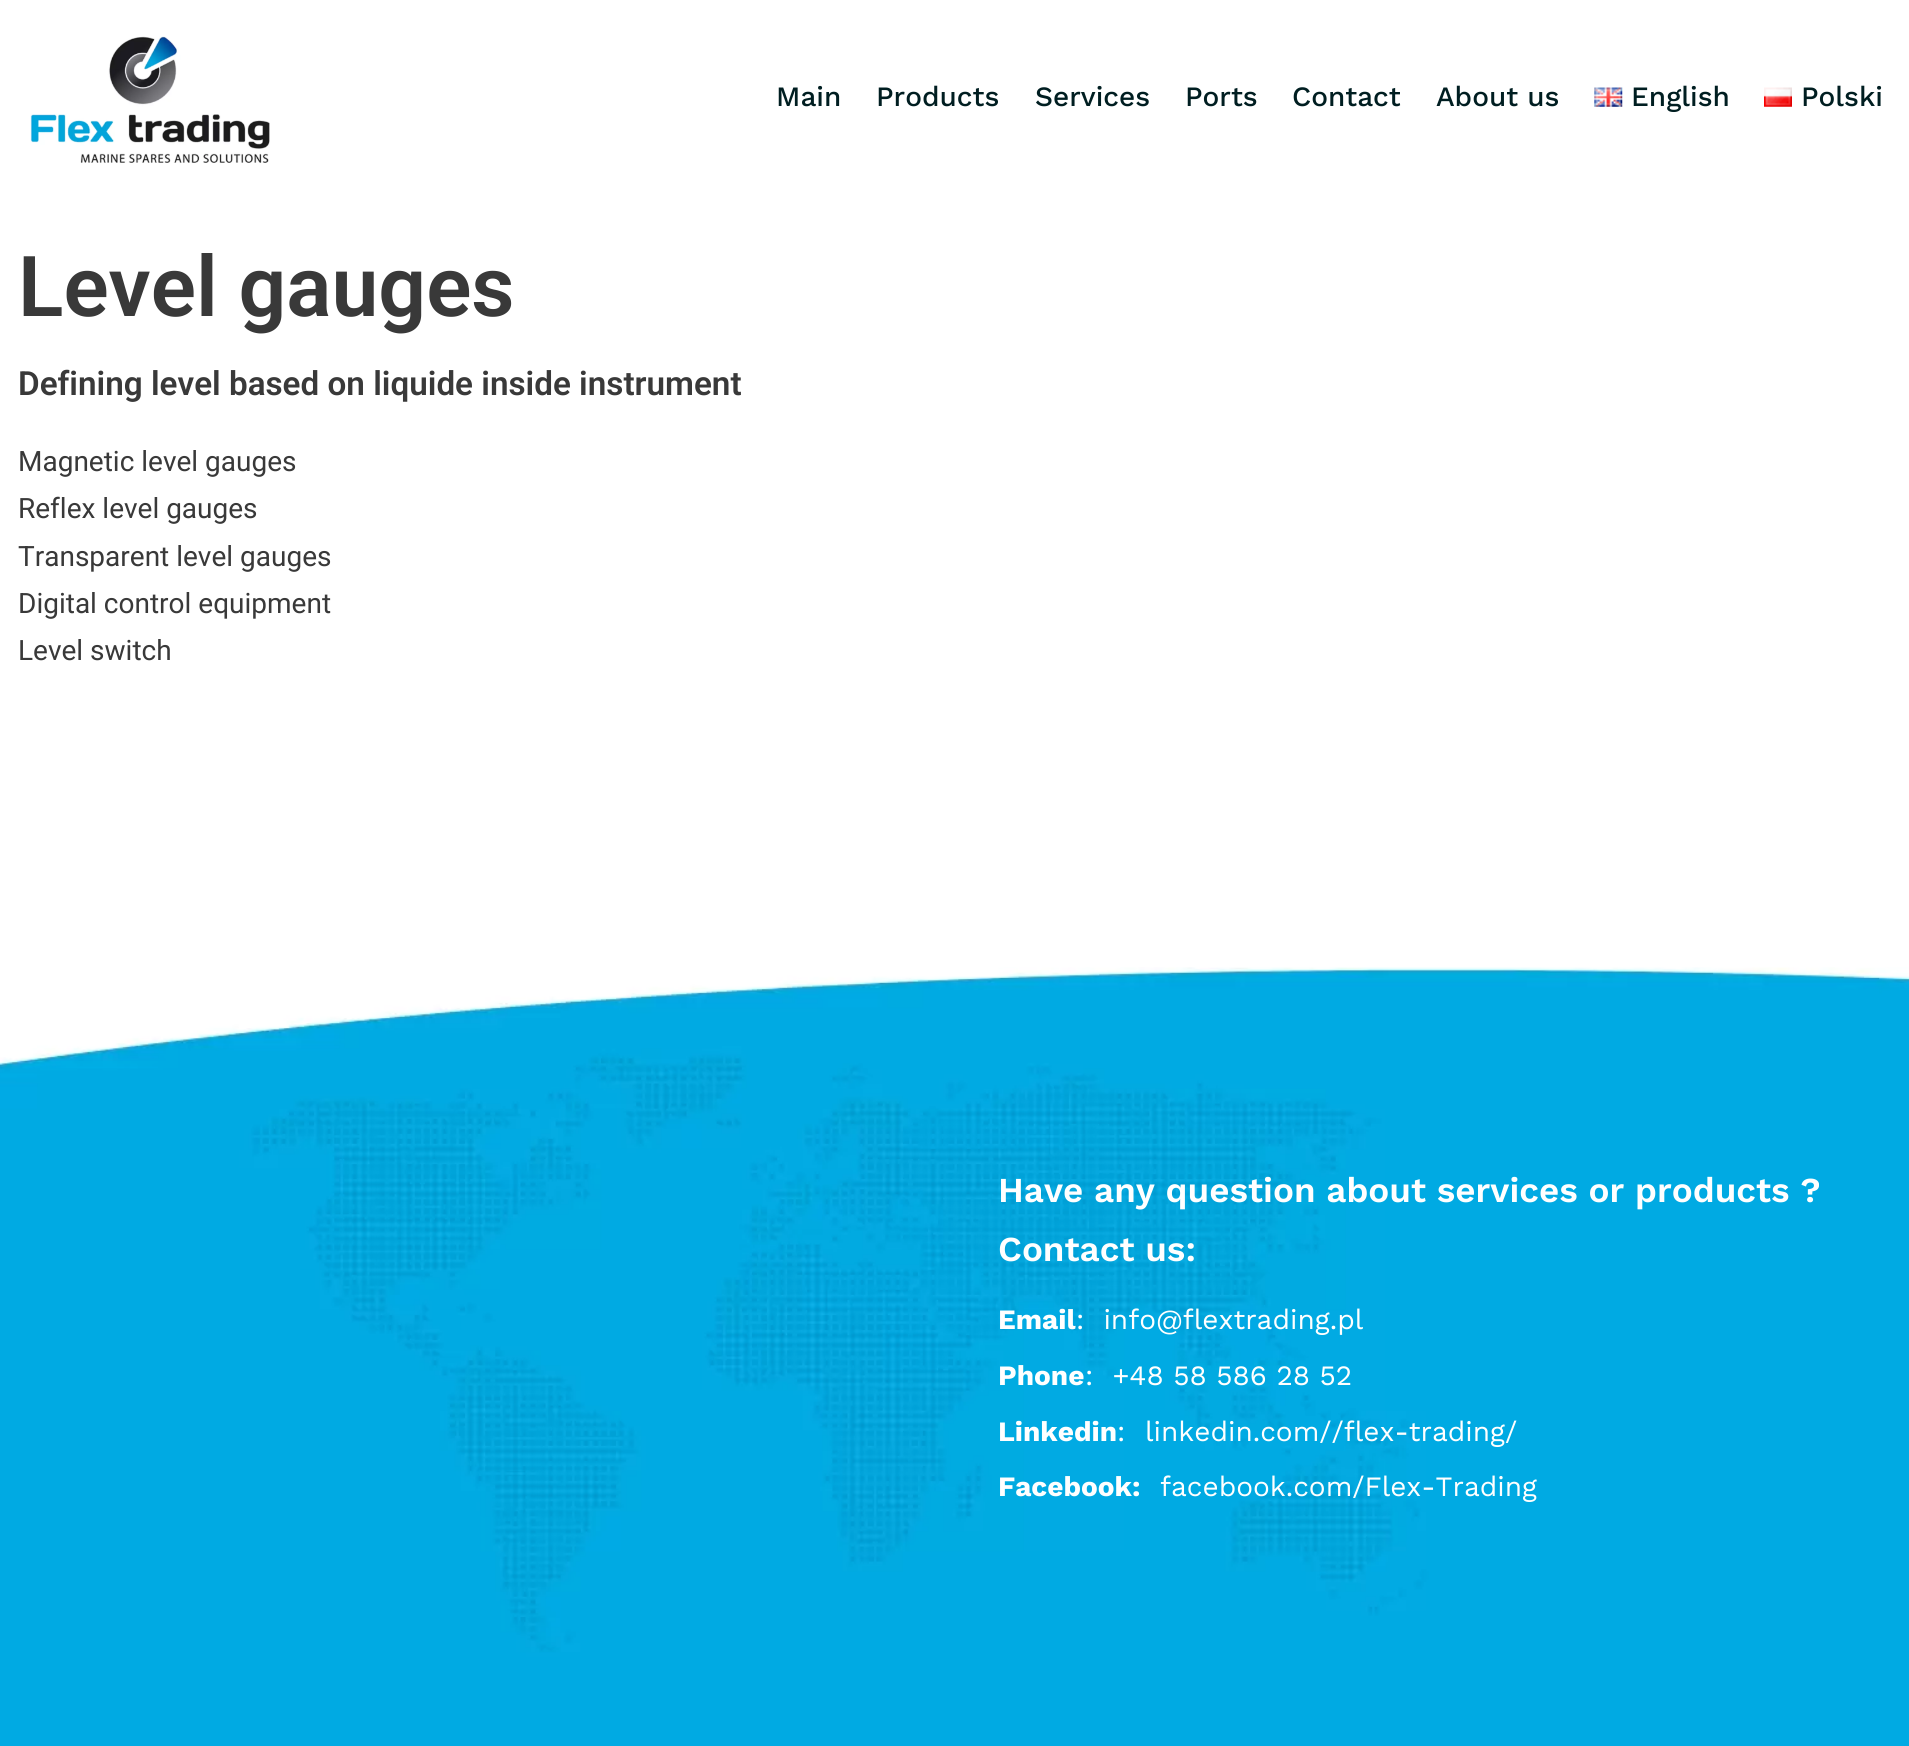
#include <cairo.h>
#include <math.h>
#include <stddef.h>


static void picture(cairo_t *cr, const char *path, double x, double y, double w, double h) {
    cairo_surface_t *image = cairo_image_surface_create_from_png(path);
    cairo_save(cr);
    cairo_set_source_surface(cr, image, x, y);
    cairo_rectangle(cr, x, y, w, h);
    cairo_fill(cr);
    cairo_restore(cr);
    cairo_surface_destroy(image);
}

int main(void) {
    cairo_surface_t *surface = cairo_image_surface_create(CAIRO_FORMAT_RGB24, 1909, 1746);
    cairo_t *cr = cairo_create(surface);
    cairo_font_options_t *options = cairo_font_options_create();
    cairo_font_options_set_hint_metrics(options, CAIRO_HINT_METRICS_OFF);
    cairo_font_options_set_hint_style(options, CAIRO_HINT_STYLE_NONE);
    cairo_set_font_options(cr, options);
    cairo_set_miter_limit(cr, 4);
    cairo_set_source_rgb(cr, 1, 1, 1);
    cairo_paint(cr);
    picture(cr, "img1.png", 30, 36, 240, 127);
    cairo_select_font_face(cr, "Work Sans Medium", CAIRO_FONT_SLANT_NORMAL, CAIRO_FONT_WEIGHT_NORMAL);
    cairo_set_font_size(cr, 28);
    cairo_set_source_rgb(cr, 0, 0.118, 0.129);
    cairo_move_to(cr, 776, 106);
    cairo_show_text(cr, "Main");
    cairo_move_to(cr, 876, 106);
    cairo_show_text(cr, "Products");
    cairo_move_to(cr, 1035, 106);
    cairo_show_text(cr, "Services");
    cairo_move_to(cr, 1185, 106);
    cairo_show_text(cr, "Ports");
    cairo_move_to(cr, 1292, 106);
    cairo_show_text(cr, "Contact");
    cairo_move_to(cr, 1436, 106);
    cairo_show_text(cr, "About us");
    picture(cr, "img2.png", 1594, 87, 29, 20);
    cairo_move_to(cr, 1631, 106);
    cairo_show_text(cr, "English");
    picture(cr, "img3.png", 1764, 87, 28, 20);
    cairo_move_to(cr, 1801, 106);
    cairo_show_text(cr, "Polski");
    cairo_select_font_face(cr, "Roboto SemiBold", CAIRO_FONT_SLANT_NORMAL, CAIRO_FONT_WEIGHT_NORMAL);
    cairo_set_font_size(cr, 84);
    cairo_set_source_rgb(cr, 0.224, 0.224, 0.224);
    cairo_move_to(cr, 18, 316);
    cairo_show_text(cr, "Level gauges");
    cairo_set_font_size(cr, 33.25);
    cairo_move_to(cr, 18, 395);
    cairo_show_text(cr, "Defining level based on liquide inside instrument");
    cairo_select_font_face(cr, "Roboto", CAIRO_FONT_SLANT_NORMAL, CAIRO_FONT_WEIGHT_NORMAL);
    cairo_set_font_size(cr, 28);
    cairo_move_to(cr, 18, 471);
    cairo_show_text(cr, "Magnetic level gauges");
    cairo_move_to(cr, 18, 518);
    cairo_show_text(cr, "Reflex level gauges");
    cairo_move_to(cr, 18, 566);
    cairo_show_text(cr, "Transparent level gauges");
    cairo_move_to(cr, 18, 613);
    cairo_show_text(cr, "Digital control equipment");
    cairo_move_to(cr, 18, 660);
    cairo_show_text(cr, "Level switch");
    picture(cr, "img4.png", 0, 967, 1909, 779);
    cairo_select_font_face(cr, "Work Sans SemiBold", CAIRO_FONT_SLANT_NORMAL, CAIRO_FONT_WEIGHT_NORMAL);
    cairo_set_font_size(cr, 35);
    cairo_set_source_rgb(cr, 1, 1, 1);
    cairo_move_to(cr, 998, 1202);
    cairo_show_text(cr, "Have any question about services or products ?");
    cairo_move_to(cr, 998, 1261);
    cairo_show_text(cr, "Contact us:");
    cairo_select_font_face(cr, "Work Sans", CAIRO_FONT_SLANT_NORMAL, CAIRO_FONT_WEIGHT_BOLD);
    cairo_set_font_size(cr, 28);
    cairo_move_to(cr, 998, 1329);
    cairo_show_text(cr, "Email");
    cairo_select_font_face(cr, "Work Sans", CAIRO_FONT_SLANT_NORMAL, CAIRO_FONT_WEIGHT_NORMAL);
    cairo_move_to(cr, 1076, 1329);
    cairo_show_text(cr, ":  info@flextrading.pl");
    cairo_select_font_face(cr, "Work Sans", CAIRO_FONT_SLANT_NORMAL, CAIRO_FONT_WEIGHT_BOLD);
    cairo_move_to(cr, 998, 1385);
    cairo_show_text(cr, "Phone");
    cairo_select_font_face(cr, "Work Sans", CAIRO_FONT_SLANT_NORMAL, CAIRO_FONT_WEIGHT_NORMAL);
    cairo_move_to(cr, 1085, 1385);
    cairo_show_text(cr, ":  +48 58 586 28 52");
    cairo_select_font_face(cr, "Work Sans", CAIRO_FONT_SLANT_NORMAL, CAIRO_FONT_WEIGHT_BOLD);
    cairo_move_to(cr, 998, 1441);
    cairo_show_text(cr, "Linkedin");
    cairo_select_font_face(cr, "Work Sans", CAIRO_FONT_SLANT_NORMAL, CAIRO_FONT_WEIGHT_NORMAL);
    cairo_move_to(cr, 1117, 1441);
    cairo_show_text(cr, ":");
    cairo_move_to(cr, 1145, 1441);
    cairo_show_text(cr, "linkedin.com//flex-trading/");
    cairo_select_font_face(cr, "Work Sans", CAIRO_FONT_SLANT_NORMAL, CAIRO_FONT_WEIGHT_BOLD);
    cairo_move_to(cr, 998, 1496);
    cairo_show_text(cr, "Facebook:");
    cairo_select_font_face(cr, "Work Sans", CAIRO_FONT_SLANT_NORMAL, CAIRO_FONT_WEIGHT_NORMAL);
    cairo_move_to(cr, 1160, 1496);
    cairo_show_text(cr, "facebook.com/Flex-Trading");
    cairo_surface_write_to_png(surface, "page.png");
    cairo_font_options_destroy(options);
    cairo_destroy(cr);
    cairo_surface_destroy(surface);
    return 0;
}
